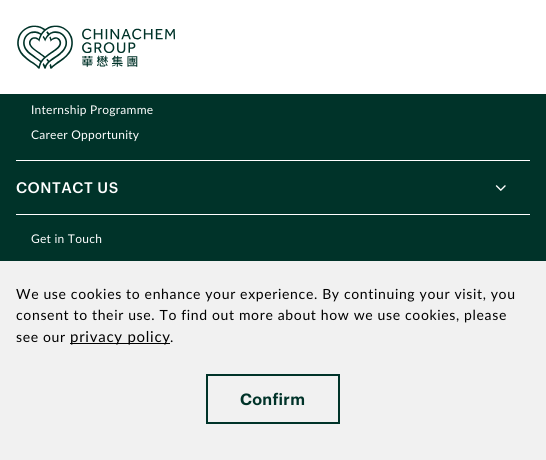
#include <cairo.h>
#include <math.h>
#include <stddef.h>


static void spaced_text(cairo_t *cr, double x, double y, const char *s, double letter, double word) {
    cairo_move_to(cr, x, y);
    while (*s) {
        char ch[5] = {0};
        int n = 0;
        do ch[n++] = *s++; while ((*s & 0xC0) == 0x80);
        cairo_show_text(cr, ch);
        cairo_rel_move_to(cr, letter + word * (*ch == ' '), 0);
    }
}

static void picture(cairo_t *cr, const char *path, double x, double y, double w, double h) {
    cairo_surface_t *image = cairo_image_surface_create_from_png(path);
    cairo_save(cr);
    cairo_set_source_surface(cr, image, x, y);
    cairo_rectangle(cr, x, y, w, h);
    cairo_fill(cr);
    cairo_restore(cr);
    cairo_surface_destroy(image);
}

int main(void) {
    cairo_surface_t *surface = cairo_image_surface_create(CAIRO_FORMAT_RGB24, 546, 460);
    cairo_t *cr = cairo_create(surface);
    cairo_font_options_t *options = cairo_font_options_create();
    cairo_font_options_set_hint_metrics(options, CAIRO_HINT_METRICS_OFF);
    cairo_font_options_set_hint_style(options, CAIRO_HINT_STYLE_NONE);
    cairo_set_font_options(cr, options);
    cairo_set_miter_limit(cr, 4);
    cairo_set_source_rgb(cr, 0, 0.2, 0.161);
    cairo_paint(cr);
    cairo_set_source_rgb(cr, 1, 1, 1);
    cairo_rectangle(cr, 0, 0, 546, 94);
    cairo_fill(cr);
    picture(cr, "img1.png", 17, 25, 158, 44);
    cairo_rectangle(cr, 16, 160, 514, 1);
    cairo_fill(cr);
    cairo_select_font_face(cr, "Lato", CAIRO_FONT_SLANT_NORMAL, CAIRO_FONT_WEIGHT_NORMAL);
    cairo_set_font_size(cr, 12);
    spaced_text(cr, 31, 114, "Internship Programme", 0.25, 0);
    spaced_text(cr, 31, 139, "Career Opportunity", 0.25, 0);
    cairo_rectangle(cr, 16, 214, 514, 1);
    cairo_fill(cr);
    cairo_select_font_face(cr, "Graphik Medium", CAIRO_FONT_SLANT_NORMAL, CAIRO_FONT_WEIGHT_NORMAL);
    cairo_set_font_size(cr, 15);
    spaced_text(cr, 16, 193, "CONTACT US", 0.5, 0);
    picture(cr, "img2.png", 495, 185, 11, 6);
    cairo_select_font_face(cr, "Lato", CAIRO_FONT_SLANT_NORMAL, CAIRO_FONT_WEIGHT_NORMAL);
    cairo_set_font_size(cr, 12);
    spaced_text(cr, 31, 243, "Get in Touch", 0.25, 0);
    cairo_set_source_rgb(cr, 0.945, 0.945, 0.945);
    cairo_rectangle(cr, 0, 261, 546, 199);
    cairo_fill(cr);
    cairo_set_font_size(cr, 14);
    cairo_set_source_rgb(cr, 0, 0, 0);
    spaced_text(cr, 16, 299, "We use cookies to enhance your experience. By continuing your visit, you", 0.65, 0);
    spaced_text(cr, 16, 320, "consent to their use. To find out more about how we use cookies, please", 0.65, 0);
    spaced_text(cr, 16, 342, "see our", 0.65, 0);
    cairo_rectangle(cr, 70, 343, 100, 1);
    cairo_fill(cr);
    cairo_set_font_size(cr, 15);
    spaced_text(cr, 70, 342, "privacy policy", 0.75, 0);
    cairo_set_font_size(cr, 14);
    spaced_text(cr, 170, 342, ".", 0.65, 0);
    cairo_rectangle(cr, 207, 375, 132, 48);
    cairo_set_source_rgb(cr, 0, 0.2, 0.161);
    cairo_stroke(cr);
    cairo_select_font_face(cr, "Graphik SemiBold", CAIRO_FONT_SLANT_NORMAL, CAIRO_FONT_WEIGHT_NORMAL);
    cairo_set_font_size(cr, 16);
    spaced_text(cr, 240, 405, "Confirm", 0.25, 0);
    cairo_surface_write_to_png(surface, "page.png");
    cairo_font_options_destroy(options);
    cairo_destroy(cr);
    cairo_surface_destroy(surface);
    return 0;
}
